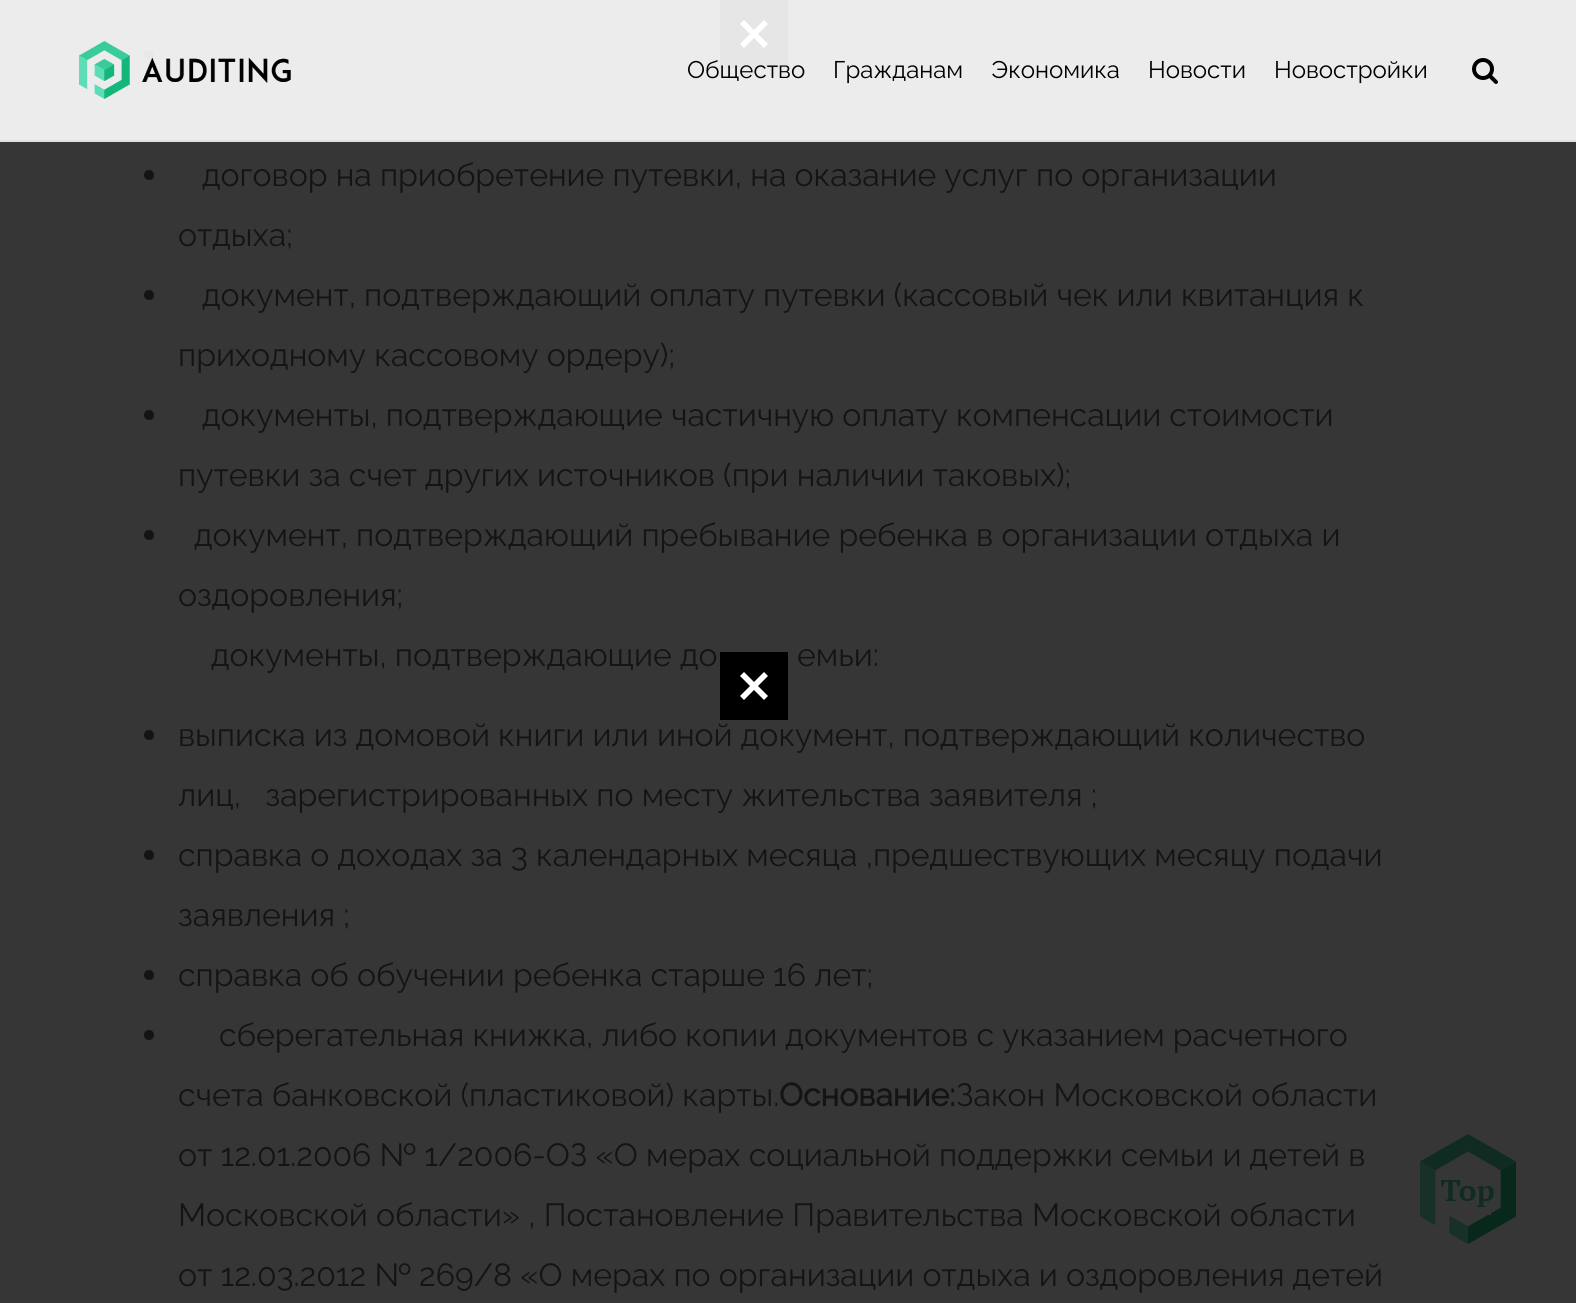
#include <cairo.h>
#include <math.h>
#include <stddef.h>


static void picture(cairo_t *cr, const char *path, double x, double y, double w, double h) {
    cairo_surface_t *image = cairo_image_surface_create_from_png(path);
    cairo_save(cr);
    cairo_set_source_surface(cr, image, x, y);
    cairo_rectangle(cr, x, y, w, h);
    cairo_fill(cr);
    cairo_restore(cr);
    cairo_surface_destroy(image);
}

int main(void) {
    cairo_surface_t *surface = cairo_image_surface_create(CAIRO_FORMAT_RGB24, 1576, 1303);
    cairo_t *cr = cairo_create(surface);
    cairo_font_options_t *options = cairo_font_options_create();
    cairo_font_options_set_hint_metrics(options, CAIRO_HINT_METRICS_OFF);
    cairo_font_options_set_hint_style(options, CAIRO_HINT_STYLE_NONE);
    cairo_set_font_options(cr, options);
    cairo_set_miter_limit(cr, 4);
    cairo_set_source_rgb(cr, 0.212, 0.212, 0.212);
    cairo_paint(cr);
    cairo_set_source_rgb(cr, 0.922, 0.922, 0.922);
    cairo_rectangle(cr, 0, 0, 1576, 140);
    cairo_fill(cr);
    cairo_set_source_rgb(cr, 0.902, 0.902, 0.902);
    cairo_rectangle(cr, 720, 0, 68, 68);
    cairo_fill(cr);
    cairo_set_source_rgb(cr, 1, 1, 1);
    cairo_new_path(cr);
    cairo_move_to(cr, 740, 44);
    cairo_line_to(cr, 764, 20);
    cairo_line_to(cr, 768, 24);
    cairo_line_to(cr, 744, 48);
    cairo_close_path(cr);
    cairo_fill(cr);
    cairo_new_path(cr);
    cairo_move_to(cr, 744, 20);
    cairo_line_to(cr, 768, 44);
    cairo_line_to(cr, 764, 48);
    cairo_line_to(cr, 740, 24);
    cairo_close_path(cr);
    cairo_fill(cr);
    cairo_set_source_rgb(cr, 0.875, 0.875, 0.875);
    cairo_rectangle(cr, 0, 140, 1576, 2);
    cairo_fill(cr);
    cairo_set_source_rgb(cr, 0.906, 0.91, 0.91);
    cairo_arc(cr, 149, 55, 5, 0, 2 * M_PI);
    cairo_fill(cr);
    picture(cr, "img1.png", 79, 41, 212, 58);
    cairo_select_font_face(cr, "Raleway Thin", CAIRO_FONT_SLANT_NORMAL, CAIRO_FONT_WEIGHT_NORMAL);
    cairo_set_font_size(cr, 24);
    cairo_set_source_rgb(cr, 0, 0, 0);
    cairo_move_to(cr, 687, 78);
    cairo_show_text(cr, "Общество");
    cairo_move_to(cr, 833, 78);
    cairo_show_text(cr, "Гражданам");
    cairo_move_to(cr, 991, 78);
    cairo_show_text(cr, "Экономика");
    cairo_move_to(cr, 1148, 78);
    cairo_show_text(cr, "Новости");
    cairo_move_to(cr, 1274, 78);
    cairo_show_text(cr, "Новостройки");
    picture(cr, "img2.png", 1472, 58, 26, 26);
    cairo_set_source_rgb(cr, 0.075, 0.082, 0.082);
    cairo_arc(cr, 149, 175, 5, 0, 2 * M_PI);
    cairo_fill(cr);
    cairo_set_font_size(cr, 32);
    cairo_move_to(cr, 202, 186);
    cairo_show_text(cr, "договор на приобретение путевки, на оказание услуг по организации");
    cairo_move_to(cr, 178, 246);
    cairo_show_text(cr, "отдыха;");
    cairo_new_path(cr);
    cairo_arc(cr, 149, 295, 5, 0, 2 * M_PI);
    cairo_fill(cr);
    cairo_move_to(cr, 202, 306);
    cairo_show_text(cr, "документ, подтверждающий оплату путевки (кассовый чек или квитанция к");
    cairo_move_to(cr, 178, 366);
    cairo_show_text(cr, "приходному кассовому ордеру);");
    cairo_new_path(cr);
    cairo_arc(cr, 149, 415, 5, 0, 2 * M_PI);
    cairo_fill(cr);
    cairo_move_to(cr, 202, 426);
    cairo_show_text(cr, "документы, подтверждающие частичную оплату компенсации стоимости");
    cairo_move_to(cr, 178, 486);
    cairo_show_text(cr, "путевки за счет других источников (при наличии таковых);");
    cairo_new_path(cr);
    cairo_arc(cr, 149, 535, 5, 0, 2 * M_PI);
    cairo_fill(cr);
    cairo_move_to(cr, 194, 546);
    cairo_show_text(cr, "документ, подтверждающий пребывание ребенка в организации отдыха и");
    cairo_move_to(cr, 178, 606);
    cairo_show_text(cr, "оздоровления;");
    cairo_move_to(cr, 211, 666);
    cairo_show_text(cr, "документы, подтверждающие до");
    cairo_move_to(cr, 797, 666);
    cairo_show_text(cr, "емьи:");
    cairo_new_path(cr);
    cairo_arc(cr, 149, 735, 5, 0, 2 * M_PI);
    cairo_fill(cr);
    cairo_move_to(cr, 178, 746);
    cairo_show_text(cr, "выписка из домовой книги или иной документ, подтверждающий количество");
    cairo_move_to(cr, 178, 806);
    cairo_show_text(cr, "лиц,   зарегистрированных по месту жительства заявителя ;");
    cairo_new_path(cr);
    cairo_arc(cr, 149, 855, 5, 0, 2 * M_PI);
    cairo_fill(cr);
    cairo_move_to(cr, 178, 866);
    cairo_show_text(cr, "справка о доходах за 3 календарных месяца ,предшествующих месяцу подачи");
    cairo_move_to(cr, 178, 926);
    cairo_show_text(cr, "заявления ;");
    cairo_new_path(cr);
    cairo_arc(cr, 149, 975, 5, 0, 2 * M_PI);
    cairo_fill(cr);
    cairo_move_to(cr, 178, 986);
    cairo_show_text(cr, "справка об обучении ребенка старше 16 лет;");
    cairo_new_path(cr);
    cairo_arc(cr, 149, 1035, 5, 0, 2 * M_PI);
    cairo_fill(cr);
    cairo_move_to(cr, 219, 1046);
    cairo_show_text(cr, "сберегательная книжка, либо копии документов с указанием расчетного");
    cairo_move_to(cr, 178, 1106);
    cairo_show_text(cr, "счета банковской (пластиковой) карты.");
    cairo_select_font_face(cr, "Raleway", CAIRO_FONT_SLANT_NORMAL, CAIRO_FONT_WEIGHT_BOLD);
    cairo_move_to(cr, 779, 1106);
    cairo_show_text(cr, "Основание:");
    cairo_select_font_face(cr, "Raleway Thin", CAIRO_FONT_SLANT_NORMAL, CAIRO_FONT_WEIGHT_NORMAL);
    cairo_move_to(cr, 956, 1106);
    cairo_show_text(cr, "Закон Московской области");
    cairo_move_to(cr, 178, 1166);
    cairo_show_text(cr, "от 12.01.2006 № 1/2006-ОЗ «О мерах социальной поддержки семьи и детей в");
    cairo_move_to(cr, 178, 1226);
    cairo_show_text(cr, "Московской области» , Постановление Правительства Московской области");
    cairo_move_to(cr, 178, 1286);
    cairo_show_text(cr, "от 12.03.2012 № 269/8 «О мерах по организации отдыха и оздоровления детей");
    cairo_set_source_rgb(cr, 0, 0, 0);
    cairo_rectangle(cr, 720, 652, 68, 68);
    cairo_fill(cr);
    cairo_set_source_rgb(cr, 1, 1, 1);
    cairo_new_path(cr);
    cairo_move_to(cr, 740, 696);
    cairo_line_to(cr, 764, 672);
    cairo_line_to(cr, 768, 676);
    cairo_line_to(cr, 744, 700);
    cairo_close_path(cr);
    cairo_fill(cr);
    cairo_new_path(cr);
    cairo_move_to(cr, 744, 672);
    cairo_line_to(cr, 768, 696);
    cairo_line_to(cr, 764, 700);
    cairo_line_to(cr, 740, 676);
    cairo_close_path(cr);
    cairo_fill(cr);
    picture(cr, "img3.png", 1420, 1134, 96, 110);
    cairo_surface_write_to_png(surface, "page.png");
    cairo_font_options_destroy(options);
    cairo_destroy(cr);
    cairo_surface_destroy(surface);
    return 0;
}
